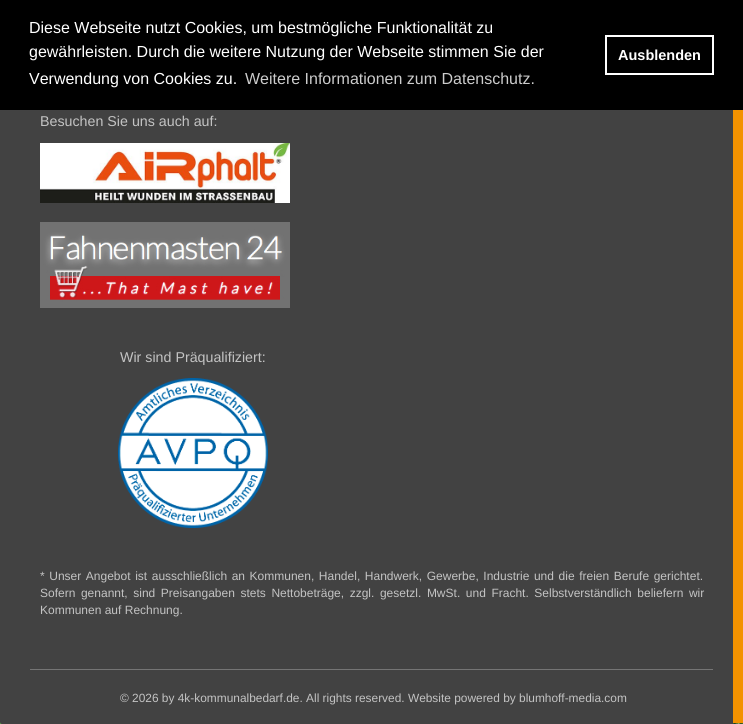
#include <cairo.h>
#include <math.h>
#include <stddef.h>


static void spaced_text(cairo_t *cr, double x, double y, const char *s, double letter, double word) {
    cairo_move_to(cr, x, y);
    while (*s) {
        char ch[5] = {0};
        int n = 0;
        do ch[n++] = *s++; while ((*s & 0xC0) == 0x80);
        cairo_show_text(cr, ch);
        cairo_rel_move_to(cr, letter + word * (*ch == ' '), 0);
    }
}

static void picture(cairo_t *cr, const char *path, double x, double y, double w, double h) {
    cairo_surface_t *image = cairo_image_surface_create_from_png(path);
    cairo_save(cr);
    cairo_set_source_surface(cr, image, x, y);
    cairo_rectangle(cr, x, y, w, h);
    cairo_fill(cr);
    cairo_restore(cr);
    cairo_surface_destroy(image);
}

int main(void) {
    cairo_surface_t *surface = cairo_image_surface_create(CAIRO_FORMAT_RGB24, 743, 724);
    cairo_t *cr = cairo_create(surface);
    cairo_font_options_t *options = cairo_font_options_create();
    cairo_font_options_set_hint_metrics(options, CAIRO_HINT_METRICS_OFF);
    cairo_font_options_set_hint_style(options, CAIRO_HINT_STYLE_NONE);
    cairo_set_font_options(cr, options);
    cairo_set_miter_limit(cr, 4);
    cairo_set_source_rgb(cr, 1, 1, 1);
    cairo_paint(cr);
    picture(cr, "img1.png", 0, 722, 743, 2);
    cairo_set_source_rgb(cr, 0.259, 0.259, 0.259);
    cairo_new_path(cr);
    cairo_move_to(cr, 0, -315);
    cairo_line_to(cr, 0, 722);
    cairo_curve_to(cr, 0, 723, 1, 724, 2, 724);
    cairo_line_to(cr, 733, 724);
    cairo_line_to(cr, 733, -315);
    cairo_close_path(cr);
    cairo_fill(cr);
    cairo_set_source_rgb(cr, 0, 0, 0);
    cairo_rectangle(cr, 0, 0, 743, 110);
    cairo_fill(cr);
    cairo_select_font_face(cr, "Liberation Sans", CAIRO_FONT_SLANT_NORMAL, CAIRO_FONT_WEIGHT_NORMAL);
    cairo_set_font_size(cr, 16);
    cairo_set_source_rgb(cr, 1, 1, 1);
    cairo_move_to(cr, 29, 33);
    cairo_show_text(cr, "Diese Webseite nutzt Cookies, um bestmögliche Funktionalität zu");
    cairo_move_to(cr, 29, 57);
    cairo_show_text(cr, "gewährleisten. Durch die weitere Nutzung der Webseite stimmen Sie der");
    cairo_move_to(cr, 29, 84);
    cairo_show_text(cr, "Verwendung von Cookies zu.");
    cairo_set_source_rgb(cr, 0.8, 0.8, 0.8);
    cairo_move_to(cr, 245, 84);
    cairo_show_text(cr, "Weitere Informationen zum Datenschutz.");
    cairo_rectangle(cr, 606, 36, 107, 38);
    cairo_set_source_rgb(cr, 1, 1, 1);
    cairo_stroke(cr);
    cairo_select_font_face(cr, "Liberation Sans", CAIRO_FONT_SLANT_NORMAL, CAIRO_FONT_WEIGHT_BOLD);
    cairo_set_font_size(cr, 14.5);
    cairo_move_to(cr, 618, 60);
    cairo_show_text(cr, "Ausblenden");
    cairo_set_source_rgb(cr, 0.953, 0.573, 0);
    cairo_rectangle(cr, 733, 110, 10, 613);
    cairo_fill(cr);
    cairo_select_font_face(cr, "Liberation Sans", CAIRO_FONT_SLANT_NORMAL, CAIRO_FONT_WEIGHT_NORMAL);
    cairo_set_font_size(cr, 14.25);
    cairo_set_source_rgb(cr, 0.765, 0.765, 0.765);
    cairo_move_to(cr, 40, 126);
    cairo_show_text(cr, "Besuchen Sie uns auch auf:");
    picture(cr, "img2.png", 40, 143, 250, 60);
    picture(cr, "img3.png", 40, 222, 250, 86);
    cairo_move_to(cr, 120, 362);
    cairo_show_text(cr, "Wir sind Präqualifiziert:");
    picture(cr, "img4.png", 118, 378, 150, 150);
    cairo_set_font_size(cr, 12);
    spaced_text(cr, 40, 580, "* Unser Angebot ist ausschließlich an Kommunen, Handel, Handwerk, Gewerbe, Industrie und die freien Berufe gerichtet.", 0, 1.25);
    spaced_text(cr, 40, 597, "Sofern genannt, sind Preisangaben stets Nettobeträge, zzgl. gesetzl. MwSt. und Fracht. Selbstverständlich beliefern wir", 0, 2.25);
    cairo_move_to(cr, 40, 614);
    cairo_show_text(cr, "Kommunen auf Rechnung.");
    cairo_set_source_rgb(cr, 0.459, 0.459, 0.459);
    cairo_rectangle(cr, 30, 669, 683, 1);
    cairo_fill(cr);
    cairo_set_font_size(cr, 11.9);
    cairo_set_source_rgb(cr, 0.765, 0.765, 0.765);
    cairo_move_to(cr, 120, 702);
    cairo_show_text(cr, "© 2026 by 4k-kommunalbedarf.de. All rights reserved. Website powered by blumhoff-media.com");
    cairo_surface_write_to_png(surface, "page.png");
    cairo_font_options_destroy(options);
    cairo_destroy(cr);
    cairo_surface_destroy(surface);
    return 0;
}
